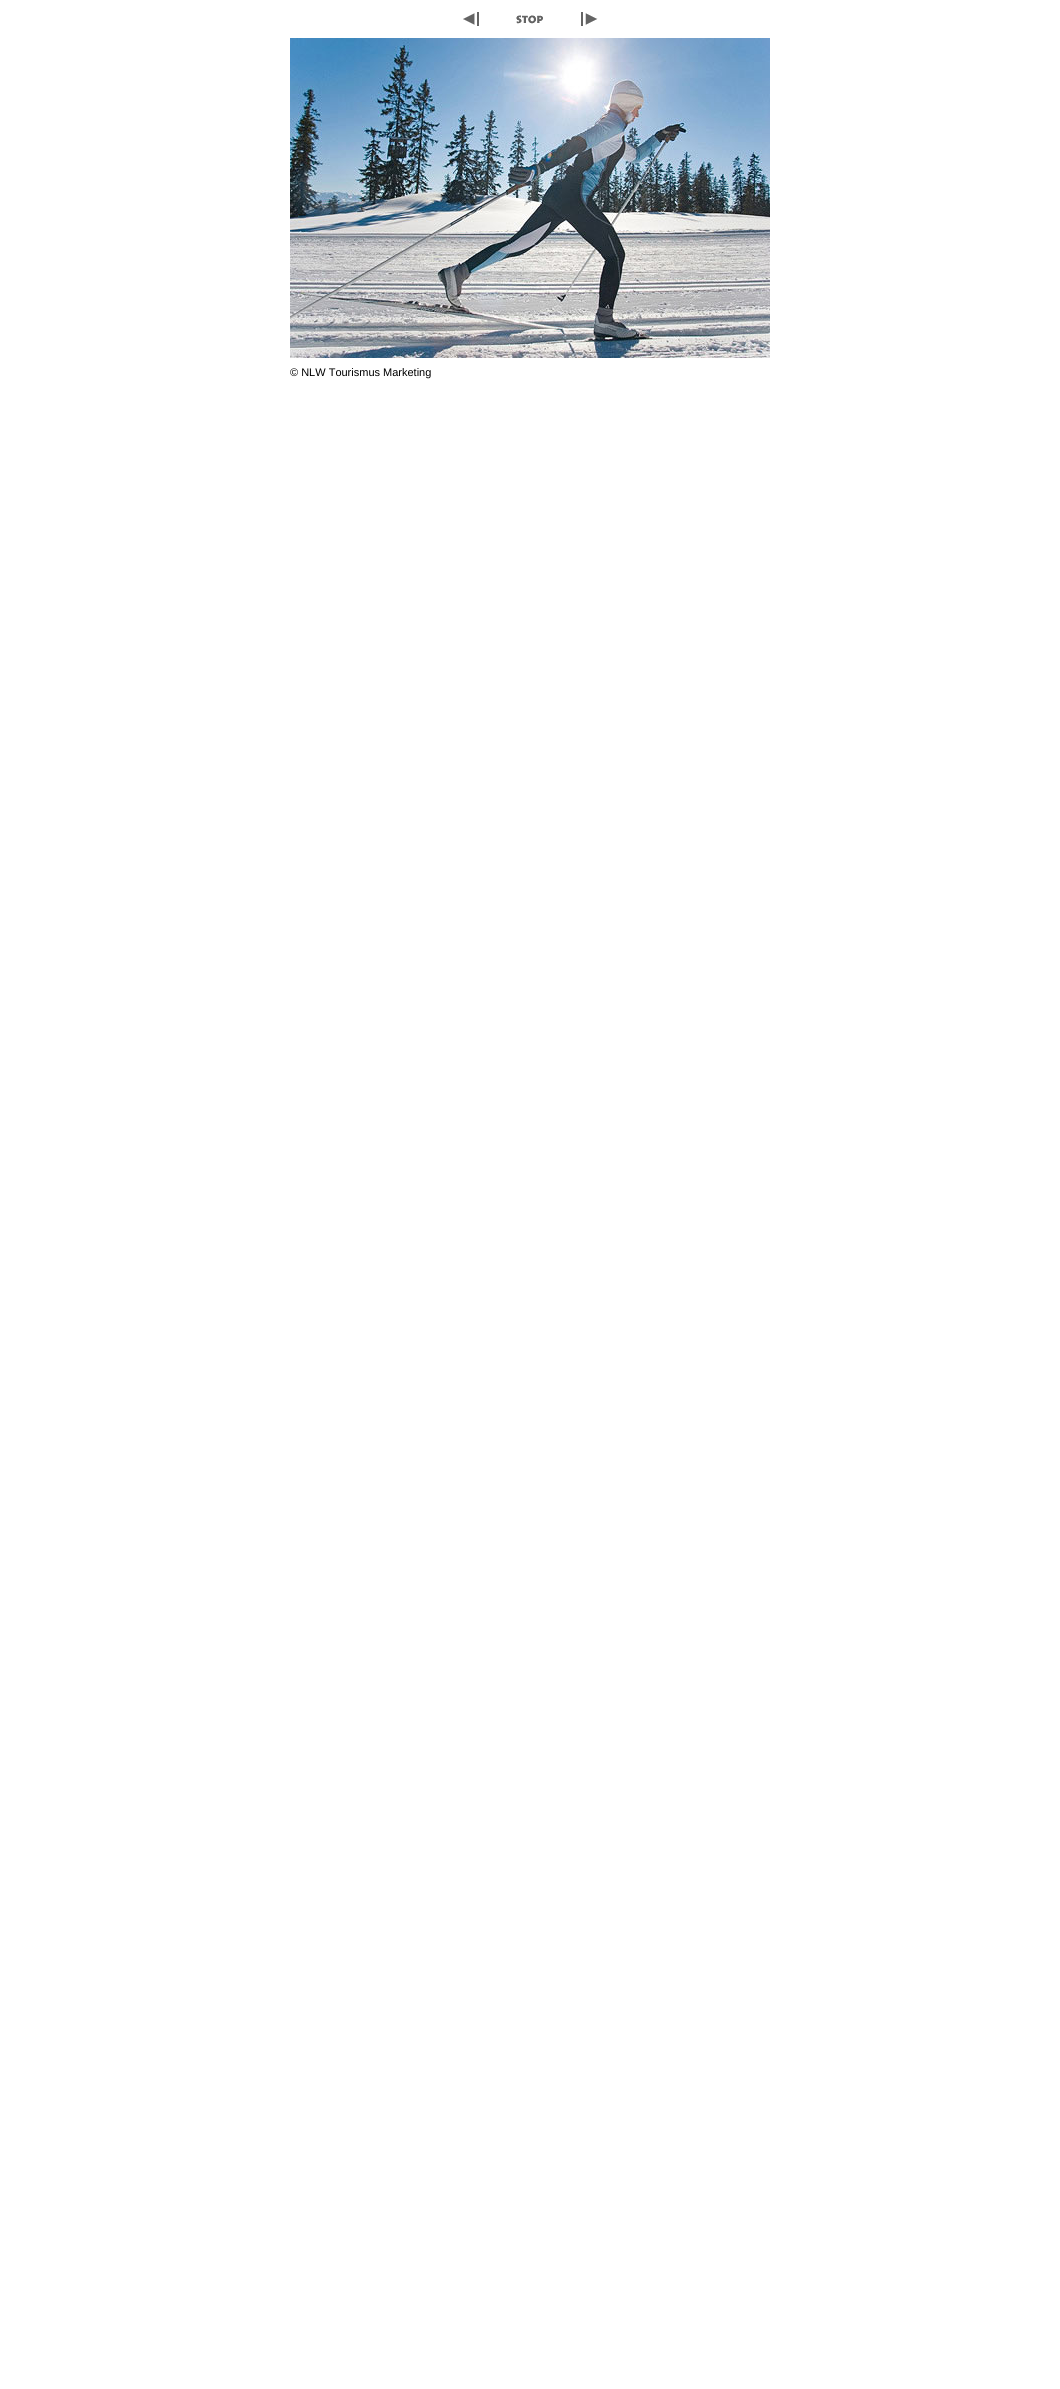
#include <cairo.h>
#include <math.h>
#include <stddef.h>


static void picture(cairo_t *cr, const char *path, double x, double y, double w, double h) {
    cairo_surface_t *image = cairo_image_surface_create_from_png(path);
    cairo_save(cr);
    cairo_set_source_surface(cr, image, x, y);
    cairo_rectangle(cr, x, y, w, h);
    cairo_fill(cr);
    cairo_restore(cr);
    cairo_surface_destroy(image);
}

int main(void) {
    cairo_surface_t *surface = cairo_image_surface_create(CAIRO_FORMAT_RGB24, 1060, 2389);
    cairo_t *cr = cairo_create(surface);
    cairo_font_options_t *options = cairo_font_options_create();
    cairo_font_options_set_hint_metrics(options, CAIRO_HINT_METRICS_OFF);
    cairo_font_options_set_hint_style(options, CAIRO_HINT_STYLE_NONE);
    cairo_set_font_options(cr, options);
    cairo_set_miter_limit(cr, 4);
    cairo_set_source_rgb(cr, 1, 1, 1);
    cairo_paint(cr);
    picture(cr, "img1.png", 463, 12, 16, 14);
    picture(cr, "img2.png", 516, 15, 27, 9);
    picture(cr, "img3.png", 581, 12, 17, 14);
    picture(cr, "img4.png", 290, 38, 480, 320);
    cairo_select_font_face(cr, "Liberation Sans", CAIRO_FONT_SLANT_NORMAL, CAIRO_FONT_WEIGHT_NORMAL);
    cairo_set_font_size(cr, 11);
    cairo_set_source_rgb(cr, 0, 0, 0);
    cairo_move_to(cr, 290, 376);
    cairo_show_text(cr, "© NLW Tourismus Marketing");
    cairo_surface_write_to_png(surface, "page.png");
    cairo_font_options_destroy(options);
    cairo_destroy(cr);
    cairo_surface_destroy(surface);
    return 0;
}
